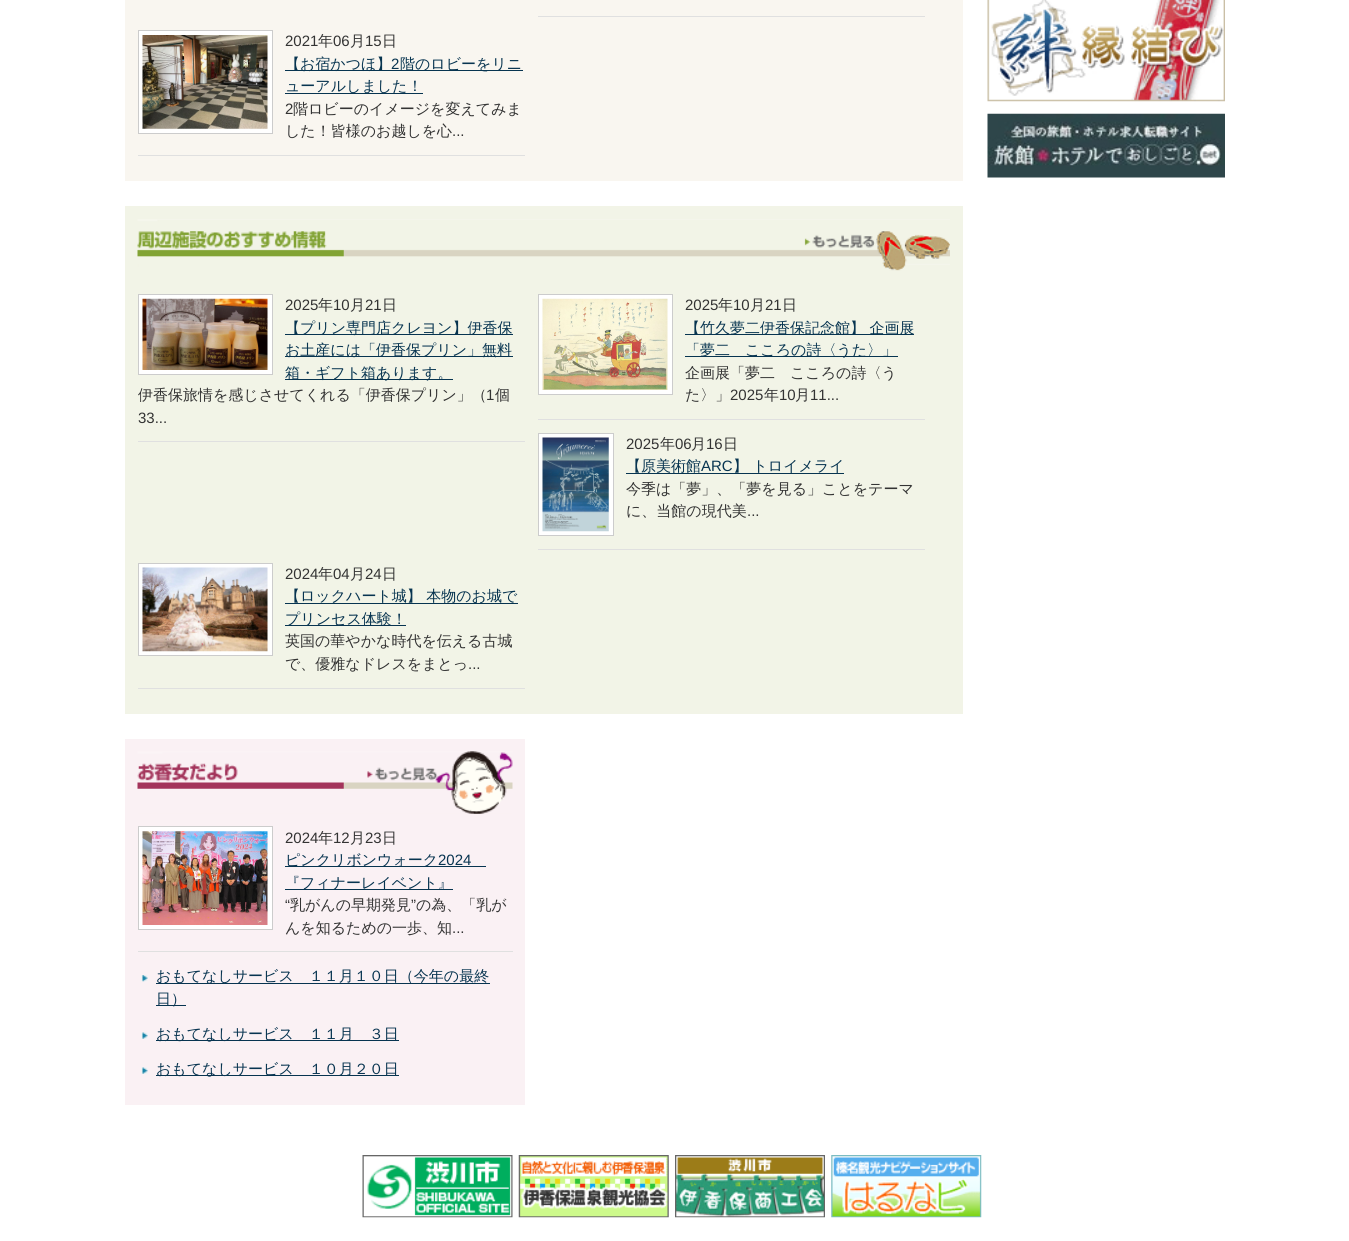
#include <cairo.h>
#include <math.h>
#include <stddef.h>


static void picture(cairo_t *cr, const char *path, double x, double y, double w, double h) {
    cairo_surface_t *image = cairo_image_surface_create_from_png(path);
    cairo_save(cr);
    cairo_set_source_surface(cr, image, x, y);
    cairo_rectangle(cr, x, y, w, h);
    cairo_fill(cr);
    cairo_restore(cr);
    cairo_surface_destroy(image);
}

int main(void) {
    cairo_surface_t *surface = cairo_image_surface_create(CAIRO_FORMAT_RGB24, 1349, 1241);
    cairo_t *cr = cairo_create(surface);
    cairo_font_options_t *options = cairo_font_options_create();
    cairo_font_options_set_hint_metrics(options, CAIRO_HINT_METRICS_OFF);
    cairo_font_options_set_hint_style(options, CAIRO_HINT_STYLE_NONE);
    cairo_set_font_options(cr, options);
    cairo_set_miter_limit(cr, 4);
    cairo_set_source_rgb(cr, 1, 1, 1);
    cairo_paint(cr);
    cairo_set_source_rgb(cr, 0.976, 0.961, 0.941);
    cairo_rectangle(cr, 125, 0, 838, 181);
    cairo_fill(cr);
    cairo_set_source_rgb(cr, 0.878, 0.878, 0.878);
    cairo_rectangle(cr, 538, 16, 387, 1);
    cairo_fill(cr);
    cairo_rectangle(cr, 138, 155, 387, 1);
    cairo_fill(cr);
    cairo_set_source_rgb(cr, 1, 1, 1);
    cairo_rectangle(cr, 138.5, 30.5, 134, 103);
    cairo_fill_preserve(cr);
    cairo_set_source_rgb(cr, 0.8, 0.8, 0.8);
    cairo_set_line_width(cr, 1);
    cairo_stroke(cr);
    picture(cr, "img1.png", 142, 35, 126, 94);
    cairo_select_font_face(cr, "Liberation Sans", CAIRO_FONT_SLANT_NORMAL, CAIRO_FONT_WEIGHT_NORMAL);
    cairo_set_font_size(cr, 15);
    cairo_set_source_rgb(cr, 0.2, 0.2, 0.2);
    cairo_move_to(cr, 285, 46);
    cairo_show_text(cr, "2021");
    cairo_select_font_face(cr, "WenQuanYi Zen Hei Medium", CAIRO_FONT_SLANT_NORMAL, CAIRO_FONT_WEIGHT_NORMAL);
    cairo_move_to(cr, 318, 46);
    cairo_show_text(cr, "年");
    cairo_select_font_face(cr, "Liberation Sans", CAIRO_FONT_SLANT_NORMAL, CAIRO_FONT_WEIGHT_NORMAL);
    cairo_move_to(cr, 333, 46);
    cairo_show_text(cr, "06");
    cairo_select_font_face(cr, "WenQuanYi Zen Hei Medium", CAIRO_FONT_SLANT_NORMAL, CAIRO_FONT_WEIGHT_NORMAL);
    cairo_move_to(cr, 350, 46);
    cairo_show_text(cr, "月");
    cairo_select_font_face(cr, "Liberation Sans", CAIRO_FONT_SLANT_NORMAL, CAIRO_FONT_WEIGHT_NORMAL);
    cairo_move_to(cr, 365, 46);
    cairo_show_text(cr, "15");
    cairo_select_font_face(cr, "WenQuanYi Zen Hei Medium", CAIRO_FONT_SLANT_NORMAL, CAIRO_FONT_WEIGHT_NORMAL);
    cairo_move_to(cr, 382, 46);
    cairo_show_text(cr, "日");
    cairo_set_source_rgb(cr, 0.031, 0.204, 0.314);
    cairo_rectangle(cr, 285, 70, 238, 1);
    cairo_fill(cr);
    cairo_move_to(cr, 285, 69);
    cairo_show_text(cr, "【お宿かつほ】");
    cairo_select_font_face(cr, "Liberation Sans", CAIRO_FONT_SLANT_NORMAL, CAIRO_FONT_WEIGHT_NORMAL);
    cairo_move_to(cr, 391, 69);
    cairo_show_text(cr, "2");
    cairo_select_font_face(cr, "WenQuanYi Zen Hei Medium", CAIRO_FONT_SLANT_NORMAL, CAIRO_FONT_WEIGHT_NORMAL);
    cairo_move_to(cr, 400, 69);
    cairo_show_text(cr, "階のロビーをリニ");
    cairo_rectangle(cr, 285, 93, 138, 1);
    cairo_fill(cr);
    cairo_move_to(cr, 285, 91);
    cairo_show_text(cr, "ューアルしました！");
    cairo_select_font_face(cr, "Liberation Sans", CAIRO_FONT_SLANT_NORMAL, CAIRO_FONT_WEIGHT_NORMAL);
    cairo_set_source_rgb(cr, 0.2, 0.2, 0.2);
    cairo_move_to(cr, 285, 114);
    cairo_show_text(cr, "2");
    cairo_select_font_face(cr, "WenQuanYi Zen Hei Medium", CAIRO_FONT_SLANT_NORMAL, CAIRO_FONT_WEIGHT_NORMAL);
    cairo_move_to(cr, 293, 114);
    cairo_show_text(cr, "階ロビーのイメージを変えてみま");
    cairo_move_to(cr, 285, 136);
    cairo_show_text(cr, "した！皆様のお越しを心");
    cairo_select_font_face(cr, "Liberation Sans", CAIRO_FONT_SLANT_NORMAL, CAIRO_FONT_WEIGHT_NORMAL);
    cairo_move_to(cr, 452, 136);
    cairo_show_text(cr, "...");
    cairo_set_source_rgb(cr, 0.949, 0.957, 0.906);
    cairo_rectangle(cr, 125, 206, 838, 508);
    cairo_fill(cr);
    picture(cr, "img2.png", 137, 219, 813, 52);
    cairo_set_source_rgb(cr, 0.878, 0.878, 0.878);
    cairo_rectangle(cr, 138, 441, 387, 1);
    cairo_fill(cr);
    cairo_set_source_rgb(cr, 1, 1, 1);
    cairo_rectangle(cr, 138.5, 294.5, 134, 80);
    cairo_fill_preserve(cr);
    cairo_set_source_rgb(cr, 0.8, 0.8, 0.8);
    cairo_stroke(cr);
    picture(cr, "img3.png", 142, 298, 126, 72);
    cairo_set_source_rgb(cr, 0.2, 0.2, 0.2);
    cairo_move_to(cr, 285, 310);
    cairo_show_text(cr, "2025");
    cairo_select_font_face(cr, "WenQuanYi Zen Hei Medium", CAIRO_FONT_SLANT_NORMAL, CAIRO_FONT_WEIGHT_NORMAL);
    cairo_move_to(cr, 318, 310);
    cairo_show_text(cr, "年");
    cairo_select_font_face(cr, "Liberation Sans", CAIRO_FONT_SLANT_NORMAL, CAIRO_FONT_WEIGHT_NORMAL);
    cairo_move_to(cr, 333, 310);
    cairo_show_text(cr, "10");
    cairo_select_font_face(cr, "WenQuanYi Zen Hei Medium", CAIRO_FONT_SLANT_NORMAL, CAIRO_FONT_WEIGHT_NORMAL);
    cairo_move_to(cr, 350, 310);
    cairo_show_text(cr, "月");
    cairo_select_font_face(cr, "Liberation Sans", CAIRO_FONT_SLANT_NORMAL, CAIRO_FONT_WEIGHT_NORMAL);
    cairo_move_to(cr, 365, 310);
    cairo_show_text(cr, "21");
    cairo_select_font_face(cr, "WenQuanYi Zen Hei Medium", CAIRO_FONT_SLANT_NORMAL, CAIRO_FONT_WEIGHT_NORMAL);
    cairo_move_to(cr, 382, 310);
    cairo_show_text(cr, "日");
    cairo_set_source_rgb(cr, 0.031, 0.204, 0.314);
    cairo_rectangle(cr, 285, 334, 228, 1);
    cairo_fill(cr);
    cairo_move_to(cr, 285, 333);
    cairo_show_text(cr, "【プリン専門店クレヨン】伊香保");
    cairo_rectangle(cr, 285, 356, 228, 1);
    cairo_fill(cr);
    cairo_move_to(cr, 285, 355);
    cairo_show_text(cr, "お土産には「伊香保プリン」無料");
    cairo_rectangle(cr, 285, 379, 168, 1);
    cairo_fill(cr);
    cairo_move_to(cr, 285, 378);
    cairo_show_text(cr, "箱・ギフト箱あります。");
    cairo_set_source_rgb(cr, 0.2, 0.2, 0.2);
    cairo_move_to(cr, 138, 400);
    cairo_show_text(cr, "伊香保旅情を感じさせてくれる「伊香保プリン」（");
    cairo_select_font_face(cr, "Liberation Sans", CAIRO_FONT_SLANT_NORMAL, CAIRO_FONT_WEIGHT_NORMAL);
    cairo_move_to(cr, 486, 400);
    cairo_show_text(cr, "1");
    cairo_select_font_face(cr, "WenQuanYi Zen Hei Medium", CAIRO_FONT_SLANT_NORMAL, CAIRO_FONT_WEIGHT_NORMAL);
    cairo_move_to(cr, 495, 400);
    cairo_show_text(cr, "個");
    cairo_select_font_face(cr, "Liberation Sans", CAIRO_FONT_SLANT_NORMAL, CAIRO_FONT_WEIGHT_NORMAL);
    cairo_move_to(cr, 138, 423);
    cairo_show_text(cr, "33...");
    cairo_set_source_rgb(cr, 0.878, 0.878, 0.878);
    cairo_rectangle(cr, 538, 419, 387, 1);
    cairo_fill(cr);
    cairo_set_source_rgb(cr, 1, 1, 1);
    cairo_rectangle(cr, 538.5, 294.5, 134, 100);
    cairo_fill_preserve(cr);
    cairo_set_source_rgb(cr, 0.8, 0.8, 0.8);
    cairo_stroke(cr);
    picture(cr, "img4.png", 542, 298, 126, 92);
    cairo_set_source_rgb(cr, 0.2, 0.2, 0.2);
    cairo_move_to(cr, 685, 310);
    cairo_show_text(cr, "2025");
    cairo_select_font_face(cr, "WenQuanYi Zen Hei Medium", CAIRO_FONT_SLANT_NORMAL, CAIRO_FONT_WEIGHT_NORMAL);
    cairo_move_to(cr, 718, 310);
    cairo_show_text(cr, "年");
    cairo_select_font_face(cr, "Liberation Sans", CAIRO_FONT_SLANT_NORMAL, CAIRO_FONT_WEIGHT_NORMAL);
    cairo_move_to(cr, 733, 310);
    cairo_show_text(cr, "10");
    cairo_select_font_face(cr, "WenQuanYi Zen Hei Medium", CAIRO_FONT_SLANT_NORMAL, CAIRO_FONT_WEIGHT_NORMAL);
    cairo_move_to(cr, 750, 310);
    cairo_show_text(cr, "月");
    cairo_select_font_face(cr, "Liberation Sans", CAIRO_FONT_SLANT_NORMAL, CAIRO_FONT_WEIGHT_NORMAL);
    cairo_move_to(cr, 765, 310);
    cairo_show_text(cr, "21");
    cairo_select_font_face(cr, "WenQuanYi Zen Hei Medium", CAIRO_FONT_SLANT_NORMAL, CAIRO_FONT_WEIGHT_NORMAL);
    cairo_move_to(cr, 782, 310);
    cairo_show_text(cr, "日");
    cairo_set_source_rgb(cr, 0.031, 0.204, 0.314);
    cairo_rectangle(cr, 685, 334, 229, 1);
    cairo_fill(cr);
    cairo_move_to(cr, 685, 333);
    cairo_show_text(cr, "【竹久夢二伊香保記念館】 企画展");
    cairo_rectangle(cr, 685, 356, 213, 1);
    cairo_fill(cr);
    cairo_move_to(cr, 685, 355);
    cairo_show_text(cr, "「夢二　こころの詩〈うた〉」");
    cairo_set_source_rgb(cr, 0.2, 0.2, 0.2);
    cairo_move_to(cr, 685, 378);
    cairo_show_text(cr, "企画展「夢二　こころの詩〈う");
    cairo_move_to(cr, 685, 400);
    cairo_show_text(cr, "た〉」");
    cairo_select_font_face(cr, "Liberation Sans", CAIRO_FONT_SLANT_NORMAL, CAIRO_FONT_WEIGHT_NORMAL);
    cairo_move_to(cr, 730, 400);
    cairo_show_text(cr, "2025");
    cairo_select_font_face(cr, "WenQuanYi Zen Hei Medium", CAIRO_FONT_SLANT_NORMAL, CAIRO_FONT_WEIGHT_NORMAL);
    cairo_move_to(cr, 764, 400);
    cairo_show_text(cr, "年");
    cairo_select_font_face(cr, "Liberation Sans", CAIRO_FONT_SLANT_NORMAL, CAIRO_FONT_WEIGHT_NORMAL);
    cairo_move_to(cr, 779, 400);
    cairo_show_text(cr, "10");
    cairo_select_font_face(cr, "WenQuanYi Zen Hei Medium", CAIRO_FONT_SLANT_NORMAL, CAIRO_FONT_WEIGHT_NORMAL);
    cairo_move_to(cr, 795, 400);
    cairo_show_text(cr, "月");
    cairo_select_font_face(cr, "Liberation Sans", CAIRO_FONT_SLANT_NORMAL, CAIRO_FONT_WEIGHT_NORMAL);
    cairo_move_to(cr, 810, 400);
    cairo_show_text(cr, "11...");
    cairo_set_source_rgb(cr, 0.878, 0.878, 0.878);
    cairo_rectangle(cr, 538, 549, 387, 1);
    cairo_fill(cr);
    cairo_set_source_rgb(cr, 1, 1, 1);
    cairo_rectangle(cr, 538.5, 433.5, 75, 102);
    cairo_fill_preserve(cr);
    cairo_set_source_rgb(cr, 0.8, 0.8, 0.8);
    cairo_stroke(cr);
    picture(cr, "img5.png", 542, 437, 67, 95);
    cairo_set_source_rgb(cr, 0.2, 0.2, 0.2);
    cairo_move_to(cr, 626, 449);
    cairo_show_text(cr, "2025");
    cairo_select_font_face(cr, "WenQuanYi Zen Hei Medium", CAIRO_FONT_SLANT_NORMAL, CAIRO_FONT_WEIGHT_NORMAL);
    cairo_move_to(cr, 660, 449);
    cairo_show_text(cr, "年");
    cairo_select_font_face(cr, "Liberation Sans", CAIRO_FONT_SLANT_NORMAL, CAIRO_FONT_WEIGHT_NORMAL);
    cairo_move_to(cr, 675, 449);
    cairo_show_text(cr, "06");
    cairo_select_font_face(cr, "WenQuanYi Zen Hei Medium", CAIRO_FONT_SLANT_NORMAL, CAIRO_FONT_WEIGHT_NORMAL);
    cairo_move_to(cr, 691, 449);
    cairo_show_text(cr, "月");
    cairo_select_font_face(cr, "Liberation Sans", CAIRO_FONT_SLANT_NORMAL, CAIRO_FONT_WEIGHT_NORMAL);
    cairo_move_to(cr, 706, 449);
    cairo_show_text(cr, "16");
    cairo_select_font_face(cr, "WenQuanYi Zen Hei Medium", CAIRO_FONT_SLANT_NORMAL, CAIRO_FONT_WEIGHT_NORMAL);
    cairo_move_to(cr, 723, 449);
    cairo_show_text(cr, "日");
    cairo_set_source_rgb(cr, 0.031, 0.204, 0.314);
    cairo_move_to(cr, 626, 471);
    cairo_show_text(cr, "【原美術館");
    cairo_select_font_face(cr, "Liberation Sans", CAIRO_FONT_SLANT_NORMAL, CAIRO_FONT_WEIGHT_NORMAL);
    cairo_move_to(cr, 701, 471);
    cairo_show_text(cr, "ARC");
    cairo_rectangle(cr, 626, 473, 218, 1);
    cairo_fill(cr);
    cairo_select_font_face(cr, "WenQuanYi Zen Hei Medium", CAIRO_FONT_SLANT_NORMAL, CAIRO_FONT_WEIGHT_NORMAL);
    cairo_move_to(cr, 733, 471);
    cairo_show_text(cr, "】 トロイメライ");
    cairo_set_source_rgb(cr, 0.2, 0.2, 0.2);
    cairo_move_to(cr, 626, 494);
    cairo_show_text(cr, "今季は「夢」、「夢を見る」ことをテーマ");
    cairo_move_to(cr, 626, 516);
    cairo_show_text(cr, "に、当館の現代美");
    cairo_select_font_face(cr, "Liberation Sans", CAIRO_FONT_SLANT_NORMAL, CAIRO_FONT_WEIGHT_NORMAL);
    cairo_move_to(cr, 747, 516);
    cairo_show_text(cr, "...");
    cairo_set_source_rgb(cr, 0.878, 0.878, 0.878);
    cairo_rectangle(cr, 138, 688, 387, 1);
    cairo_fill(cr);
    cairo_set_source_rgb(cr, 1, 1, 1);
    cairo_rectangle(cr, 138.5, 563.5, 134, 92);
    cairo_fill_preserve(cr);
    cairo_set_source_rgb(cr, 0.8, 0.8, 0.8);
    cairo_stroke(cr);
    picture(cr, "img6.png", 142, 567, 126, 85);
    cairo_set_source_rgb(cr, 0.2, 0.2, 0.2);
    cairo_move_to(cr, 285, 579);
    cairo_show_text(cr, "2024");
    cairo_select_font_face(cr, "WenQuanYi Zen Hei Medium", CAIRO_FONT_SLANT_NORMAL, CAIRO_FONT_WEIGHT_NORMAL);
    cairo_move_to(cr, 318, 579);
    cairo_show_text(cr, "年");
    cairo_select_font_face(cr, "Liberation Sans", CAIRO_FONT_SLANT_NORMAL, CAIRO_FONT_WEIGHT_NORMAL);
    cairo_move_to(cr, 333, 579);
    cairo_show_text(cr, "04");
    cairo_select_font_face(cr, "WenQuanYi Zen Hei Medium", CAIRO_FONT_SLANT_NORMAL, CAIRO_FONT_WEIGHT_NORMAL);
    cairo_move_to(cr, 350, 579);
    cairo_show_text(cr, "月");
    cairo_select_font_face(cr, "Liberation Sans", CAIRO_FONT_SLANT_NORMAL, CAIRO_FONT_WEIGHT_NORMAL);
    cairo_move_to(cr, 365, 579);
    cairo_show_text(cr, "24");
    cairo_select_font_face(cr, "WenQuanYi Zen Hei Medium", CAIRO_FONT_SLANT_NORMAL, CAIRO_FONT_WEIGHT_NORMAL);
    cairo_move_to(cr, 382, 579);
    cairo_show_text(cr, "日");
    cairo_set_source_rgb(cr, 0.031, 0.204, 0.314);
    cairo_rectangle(cr, 285, 603, 233, 1);
    cairo_fill(cr);
    cairo_move_to(cr, 285, 601);
    cairo_show_text(cr, "【ロックハート城】 本物のお城で");
    cairo_rectangle(cr, 285, 625, 121, 1);
    cairo_fill(cr);
    cairo_move_to(cr, 285, 624);
    cairo_show_text(cr, "プリンセス体験！");
    cairo_set_source_rgb(cr, 0.2, 0.2, 0.2);
    cairo_move_to(cr, 285, 646);
    cairo_show_text(cr, "英国の華やかな時代を伝える古城");
    cairo_move_to(cr, 285, 669);
    cairo_show_text(cr, "で、優雅なドレスをまとっ");
    cairo_select_font_face(cr, "Liberation Sans", CAIRO_FONT_SLANT_NORMAL, CAIRO_FONT_WEIGHT_NORMAL);
    cairo_move_to(cr, 468, 669);
    cairo_show_text(cr, "...");
    cairo_set_source_rgb(cr, 0.98, 0.945, 0.957);
    cairo_rectangle(cr, 125, 739, 400, 366);
    cairo_fill(cr);
    picture(cr, "img7.png", 137, 751, 376, 63);
    cairo_set_source_rgb(cr, 0.878, 0.878, 0.878);
    cairo_rectangle(cr, 138, 951, 375, 1);
    cairo_fill(cr);
    cairo_set_source_rgb(cr, 1, 1, 1);
    cairo_rectangle(cr, 138.5, 826.5, 134, 103);
    cairo_fill_preserve(cr);
    cairo_set_source_rgb(cr, 0.8, 0.8, 0.8);
    cairo_stroke(cr);
    picture(cr, "img8.png", 142, 831, 126, 94);
    cairo_set_source_rgb(cr, 0.2, 0.2, 0.2);
    cairo_move_to(cr, 285, 843);
    cairo_show_text(cr, "2024");
    cairo_select_font_face(cr, "WenQuanYi Zen Hei Medium", CAIRO_FONT_SLANT_NORMAL, CAIRO_FONT_WEIGHT_NORMAL);
    cairo_move_to(cr, 318, 843);
    cairo_show_text(cr, "年");
    cairo_select_font_face(cr, "Liberation Sans", CAIRO_FONT_SLANT_NORMAL, CAIRO_FONT_WEIGHT_NORMAL);
    cairo_move_to(cr, 333, 843);
    cairo_show_text(cr, "12");
    cairo_select_font_face(cr, "WenQuanYi Zen Hei Medium", CAIRO_FONT_SLANT_NORMAL, CAIRO_FONT_WEIGHT_NORMAL);
    cairo_move_to(cr, 350, 843);
    cairo_show_text(cr, "月");
    cairo_select_font_face(cr, "Liberation Sans", CAIRO_FONT_SLANT_NORMAL, CAIRO_FONT_WEIGHT_NORMAL);
    cairo_move_to(cr, 365, 843);
    cairo_show_text(cr, "23");
    cairo_select_font_face(cr, "WenQuanYi Zen Hei Medium", CAIRO_FONT_SLANT_NORMAL, CAIRO_FONT_WEIGHT_NORMAL);
    cairo_move_to(cr, 382, 843);
    cairo_show_text(cr, "日");
    cairo_set_source_rgb(cr, 0.031, 0.204, 0.314);
    cairo_rectangle(cr, 285, 866, 201, 1);
    cairo_fill(cr);
    cairo_move_to(cr, 285, 865);
    cairo_show_text(cr, "ピンクリボンウォーク");
    cairo_select_font_face(cr, "Liberation Sans", CAIRO_FONT_SLANT_NORMAL, CAIRO_FONT_WEIGHT_NORMAL);
    cairo_move_to(cr, 438, 865);
    cairo_show_text(cr, "2024");
    cairo_rectangle(cr, 285, 889, 168, 1);
    cairo_fill(cr);
    cairo_select_font_face(cr, "WenQuanYi Zen Hei Medium", CAIRO_FONT_SLANT_NORMAL, CAIRO_FONT_WEIGHT_NORMAL);
    cairo_move_to(cr, 285, 888);
    cairo_show_text(cr, "『フィナーレイベント』");
    cairo_select_font_face(cr, "Liberation Sans", CAIRO_FONT_SLANT_NORMAL, CAIRO_FONT_WEIGHT_NORMAL);
    cairo_set_source_rgb(cr, 0.2, 0.2, 0.2);
    cairo_move_to(cr, 285, 910);
    cairo_show_text(cr, "“");
    cairo_select_font_face(cr, "WenQuanYi Zen Hei Medium", CAIRO_FONT_SLANT_NORMAL, CAIRO_FONT_WEIGHT_NORMAL);
    cairo_move_to(cr, 290, 910);
    cairo_show_text(cr, "乳がんの早期発見");
    cairo_select_font_face(cr, "Liberation Sans", CAIRO_FONT_SLANT_NORMAL, CAIRO_FONT_WEIGHT_NORMAL);
    cairo_move_to(cr, 411, 910);
    cairo_show_text(cr, "”");
    cairo_select_font_face(cr, "WenQuanYi Zen Hei Medium", CAIRO_FONT_SLANT_NORMAL, CAIRO_FONT_WEIGHT_NORMAL);
    cairo_move_to(cr, 416, 910);
    cairo_show_text(cr, "の為、「乳が");
    cairo_move_to(cr, 285, 933);
    cairo_show_text(cr, "んを知るための一歩、知");
    cairo_select_font_face(cr, "Liberation Sans", CAIRO_FONT_SLANT_NORMAL, CAIRO_FONT_WEIGHT_NORMAL);
    cairo_move_to(cr, 452, 933);
    cairo_show_text(cr, "...");
    picture(cr, "img9.png", 141, 975, 7, 7);
    cairo_set_source_rgb(cr, 0.031, 0.204, 0.314);
    cairo_rectangle(cr, 156, 983, 334, 1);
    cairo_fill(cr);
    cairo_select_font_face(cr, "WenQuanYi Zen Hei Medium", CAIRO_FONT_SLANT_NORMAL, CAIRO_FONT_WEIGHT_NORMAL);
    cairo_move_to(cr, 156, 981);
    cairo_show_text(cr, "おもてなしサービス　１１月１０日（今年の最終");
    cairo_rectangle(cr, 156, 1005, 30, 1);
    cairo_fill(cr);
    cairo_move_to(cr, 156, 1004);
    cairo_show_text(cr, "日）");
    picture(cr, "img10.png", 141, 1032, 7, 7);
    cairo_rectangle(cr, 156, 1040, 243, 1);
    cairo_fill(cr);
    cairo_move_to(cr, 156, 1039);
    cairo_show_text(cr, "おもてなしサービス　１１月　３日");
    picture(cr, "img10.png", 141, 1067, 7, 7);
    cairo_rectangle(cr, 156, 1075, 243, 1);
    cairo_fill(cr);
    cairo_move_to(cr, 156, 1074);
    cairo_show_text(cr, "おもてなしサービス　１０月２０日");
    picture(cr, "img11.png", 987, 0, 238, 102);
    picture(cr, "img12.png", 987, 113, 238, 65);
    picture(cr, "img13.png", 362, 1155, 151, 63);
    picture(cr, "img14.png", 518, 1155, 151, 63);
    picture(cr, "img15.png", 675, 1155, 150, 63);
    picture(cr, "img16.png", 831, 1155, 151, 63);
    cairo_surface_write_to_png(surface, "page.png");
    cairo_font_options_destroy(options);
    cairo_destroy(cr);
    cairo_surface_destroy(surface);
    return 0;
}
